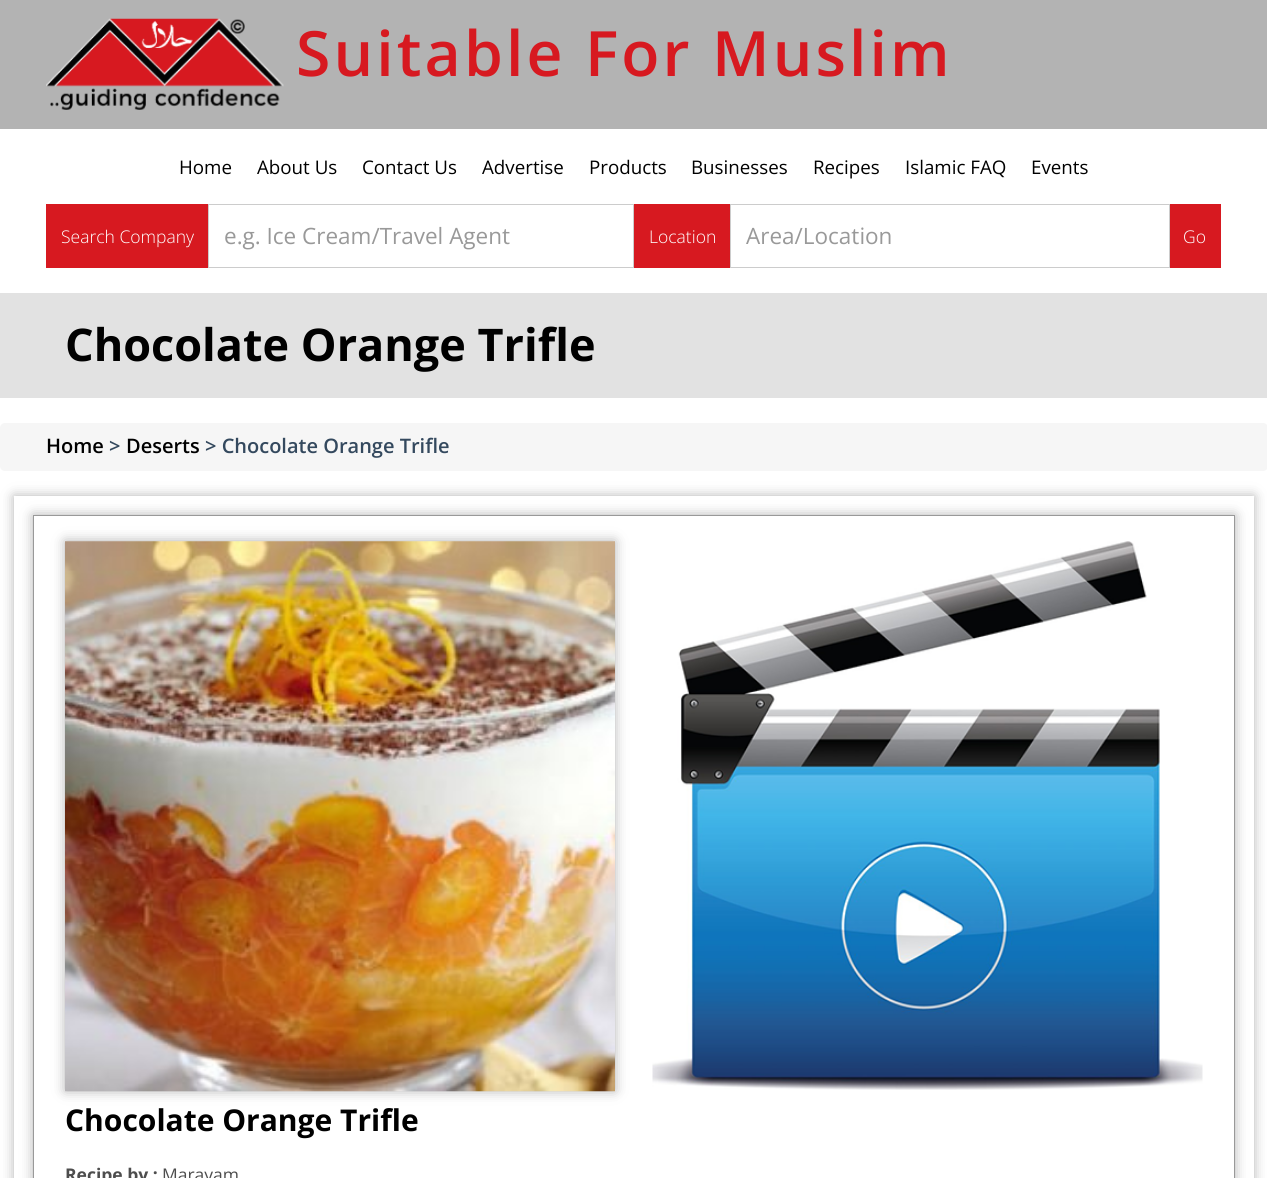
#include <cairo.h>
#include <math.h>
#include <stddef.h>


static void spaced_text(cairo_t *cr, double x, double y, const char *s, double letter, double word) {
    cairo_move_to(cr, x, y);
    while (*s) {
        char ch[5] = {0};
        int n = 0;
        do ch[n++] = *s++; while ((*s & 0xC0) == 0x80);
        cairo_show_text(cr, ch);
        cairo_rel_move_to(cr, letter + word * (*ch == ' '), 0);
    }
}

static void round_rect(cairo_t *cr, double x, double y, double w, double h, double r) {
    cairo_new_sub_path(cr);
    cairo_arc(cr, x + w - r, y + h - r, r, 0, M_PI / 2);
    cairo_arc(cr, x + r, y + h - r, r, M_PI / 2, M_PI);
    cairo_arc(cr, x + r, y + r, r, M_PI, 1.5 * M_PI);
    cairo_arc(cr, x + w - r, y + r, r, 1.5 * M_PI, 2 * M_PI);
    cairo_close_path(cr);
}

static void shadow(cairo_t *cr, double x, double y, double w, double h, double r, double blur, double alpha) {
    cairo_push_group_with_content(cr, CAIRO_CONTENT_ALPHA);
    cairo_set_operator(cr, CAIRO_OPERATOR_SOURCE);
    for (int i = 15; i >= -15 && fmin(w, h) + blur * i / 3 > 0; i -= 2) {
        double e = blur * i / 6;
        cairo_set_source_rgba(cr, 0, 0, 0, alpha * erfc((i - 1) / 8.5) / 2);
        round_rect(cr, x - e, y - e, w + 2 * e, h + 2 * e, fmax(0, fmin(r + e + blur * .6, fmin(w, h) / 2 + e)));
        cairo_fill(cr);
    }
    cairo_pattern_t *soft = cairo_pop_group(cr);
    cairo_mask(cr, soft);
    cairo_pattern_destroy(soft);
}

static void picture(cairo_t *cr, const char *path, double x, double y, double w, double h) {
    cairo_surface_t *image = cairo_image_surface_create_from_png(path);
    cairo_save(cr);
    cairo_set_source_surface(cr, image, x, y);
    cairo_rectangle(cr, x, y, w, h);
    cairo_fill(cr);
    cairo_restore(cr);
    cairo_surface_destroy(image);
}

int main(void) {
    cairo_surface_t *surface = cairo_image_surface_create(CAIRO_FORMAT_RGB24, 1267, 1178);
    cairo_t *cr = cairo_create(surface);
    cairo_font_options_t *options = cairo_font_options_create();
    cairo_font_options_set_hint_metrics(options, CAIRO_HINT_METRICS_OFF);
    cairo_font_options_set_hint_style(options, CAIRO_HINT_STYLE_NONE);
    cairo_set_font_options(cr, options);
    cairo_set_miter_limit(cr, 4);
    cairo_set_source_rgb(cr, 1, 1, 1);
    cairo_paint(cr);
    cairo_set_source_rgb(cr, 0.702, 0.702, 0.702);
    cairo_rectangle(cr, 0, 0, 1267, 129);
    cairo_fill(cr);
    picture(cr, "img1.png", 46, 18, 238, 92);
    cairo_select_font_face(cr, "Open Sans SemiBold", CAIRO_FONT_SLANT_NORMAL, CAIRO_FONT_WEIGHT_NORMAL);
    cairo_set_font_size(cr, 62.5);
    cairo_set_source_rgb(cr, 0.843, 0.098, 0.125);
    spaced_text(cr, 296, 76, "Suitable For Muslim", 3.1, 0);
    cairo_select_font_face(cr, "Open Sans", CAIRO_FONT_SLANT_NORMAL, CAIRO_FONT_WEIGHT_NORMAL);
    cairo_set_font_size(cr, 18.75);
    cairo_set_source_rgb(cr, 0, 0, 0);
    cairo_move_to(cr, 179, 174);
    cairo_show_text(cr, "Home");
    cairo_move_to(cr, 257, 174);
    cairo_show_text(cr, "About Us");
    cairo_move_to(cr, 362, 174);
    cairo_show_text(cr, "Contact Us");
    cairo_move_to(cr, 482, 174);
    cairo_show_text(cr, "Advertise");
    cairo_move_to(cr, 589, 174);
    cairo_show_text(cr, "Products");
    cairo_move_to(cr, 691, 174);
    cairo_show_text(cr, "Businesses");
    cairo_move_to(cr, 813, 174);
    cairo_show_text(cr, "Recipes");
    cairo_move_to(cr, 905, 174);
    cairo_show_text(cr, "Islamic FAQ");
    cairo_move_to(cr, 1031, 174);
    cairo_show_text(cr, "Events");
    cairo_set_source_rgb(cr, 0.843, 0.098, 0.125);
    cairo_rectangle(cr, 46, 204, 162, 64);
    cairo_fill(cr);
    cairo_select_font_face(cr, "Open Sans Light", CAIRO_FONT_SLANT_NORMAL, CAIRO_FONT_WEIGHT_NORMAL);
    cairo_set_font_size(cr, 17.5);
    cairo_set_source_rgb(cr, 1, 1, 1);
    cairo_move_to(cr, 61, 243);
    cairo_show_text(cr, "Search Company");
    cairo_rectangle(cr, 208.5, 204.5, 425, 63);
    cairo_set_source_rgb(cr, 0.8, 0.8, 0.8);
    cairo_set_line_width(cr, 1);
    cairo_stroke(cr);
    cairo_select_font_face(cr, "Open Sans", CAIRO_FONT_SLANT_NORMAL, CAIRO_FONT_WEIGHT_NORMAL);
    cairo_set_font_size(cr, 22.5);
    cairo_set_source_rgb(cr, 0.6, 0.6, 0.6);
    cairo_move_to(cr, 224, 244);
    cairo_show_text(cr, "e.g. Ice Cream/Travel Agent");
    cairo_set_source_rgb(cr, 0.843, 0.098, 0.125);
    cairo_rectangle(cr, 634, 204, 96, 64);
    cairo_fill(cr);
    cairo_select_font_face(cr, "Open Sans Light", CAIRO_FONT_SLANT_NORMAL, CAIRO_FONT_WEIGHT_NORMAL);
    cairo_set_font_size(cr, 17.5);
    cairo_set_source_rgb(cr, 1, 1, 1);
    cairo_move_to(cr, 649, 243);
    cairo_show_text(cr, "Location");
    cairo_rectangle(cr, 730.5, 204.5, 439, 63);
    cairo_set_source_rgb(cr, 0.8, 0.8, 0.8);
    cairo_stroke(cr);
    cairo_select_font_face(cr, "Open Sans", CAIRO_FONT_SLANT_NORMAL, CAIRO_FONT_WEIGHT_NORMAL);
    cairo_set_font_size(cr, 22.5);
    cairo_set_source_rgb(cr, 0.6, 0.6, 0.6);
    cairo_move_to(cr, 746, 244);
    cairo_show_text(cr, "Area/Location");
    cairo_set_source_rgb(cr, 0.843, 0.098, 0.125);
    cairo_rectangle(cr, 1170, 204, 51, 64);
    cairo_fill(cr);
    cairo_select_font_face(cr, "Open Sans Light", CAIRO_FONT_SLANT_NORMAL, CAIRO_FONT_WEIGHT_NORMAL);
    cairo_set_font_size(cr, 17.5);
    cairo_set_source_rgb(cr, 1, 1, 1);
    cairo_move_to(cr, 1183, 243);
    cairo_show_text(cr, "Go");
    cairo_set_source_rgb(cr, 0.886, 0.886, 0.886);
    cairo_rectangle(cr, 0, 293, 1267, 105);
    cairo_fill(cr);
    cairo_select_font_face(cr, "Open Sans", CAIRO_FONT_SLANT_NORMAL, CAIRO_FONT_WEIGHT_BOLD);
    cairo_set_font_size(cr, 45);
    cairo_set_source_rgb(cr, 0, 0, 0);
    cairo_move_to(cr, 65, 361);
    cairo_show_text(cr, "Chocolate Orange Trifle");
    cairo_set_source_rgb(cr, 0.961, 0.961, 0.961);
    round_rect(cr, 0, 423, 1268, 48, 5);
    cairo_fill(cr);
    cairo_select_font_face(cr, "Open Sans SemiBold", CAIRO_FONT_SLANT_NORMAL, CAIRO_FONT_WEIGHT_NORMAL);
    cairo_set_font_size(cr, 20);
    cairo_set_source_rgb(cr, 0, 0, 0);
    cairo_move_to(cr, 46, 453);
    cairo_show_text(cr, "Home");
    cairo_set_source_rgb(cr, 0.204, 0.286, 0.369);
    cairo_move_to(cr, 109, 453);
    cairo_show_text(cr, ">");
    cairo_set_source_rgb(cr, 0, 0, 0);
    cairo_move_to(cr, 126, 453);
    cairo_show_text(cr, "Deserts");
    cairo_set_source_rgb(cr, 0.204, 0.286, 0.369);
    cairo_move_to(cr, 205, 453);
    cairo_show_text(cr, "> Chocolate Orange Trifle");
    cairo_save(cr);
    cairo_set_fill_rule(cr, CAIRO_FILL_RULE_EVEN_ODD);
    cairo_new_path(cr);
    cairo_move_to(cr, 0, 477);
    cairo_line_to(cr, 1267, 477);
    cairo_line_to(cr, 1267, 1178);
    cairo_line_to(cr, 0, 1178);
    cairo_close_path(cr);
    cairo_move_to(cr, 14, 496);
    cairo_line_to(cr, 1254, 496);
    cairo_line_to(cr, 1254, 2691);
    cairo_line_to(cr, 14, 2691);
    cairo_close_path(cr);
    cairo_clip(cr);
    cairo_set_source_rgb(cr, 0.706, 0.706, 0.706);
    shadow(cr, 14, 496, 1240, 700, 0, 6, 1);
    cairo_restore(cr);
    cairo_save(cr);
    cairo_set_fill_rule(cr, CAIRO_FILL_RULE_EVEN_ODD);
    cairo_new_path(cr);
    cairo_move_to(cr, 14, 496);
    cairo_line_to(cr, 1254, 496);
    cairo_line_to(cr, 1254, 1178);
    cairo_line_to(cr, 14, 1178);
    cairo_close_path(cr);
    cairo_move_to(cr, 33, 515);
    cairo_line_to(cr, 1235, 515);
    cairo_line_to(cr, 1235, 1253);
    cairo_line_to(cr, 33, 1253);
    cairo_close_path(cr);
    cairo_clip(cr);
    cairo_set_source_rgb(cr, 0.706, 0.706, 0.706);
    shadow(cr, 33, 515, 1202, 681, 0, 6, 1);
    cairo_restore(cr);
    cairo_rectangle(cr, 33.5, 515.5, 1201, 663);
    cairo_set_source_rgb(cr, 0.6, 0.6, 0.6);
    cairo_stroke(cr);
    cairo_set_source_rgb(cr, 0.706, 0.706, 0.706);
    shadow(cr, 65, 541, 550, 550, 0, 6, 1);
    picture(cr, "img2.png", 65, 541, 550, 551);
    picture(cr, "img3.png", 652, 541, 551, 549);
    cairo_select_font_face(cr, "Open Sans", CAIRO_FONT_SLANT_NORMAL, CAIRO_FONT_WEIGHT_BOLD);
    cairo_set_font_size(cr, 30);
    cairo_set_source_rgb(cr, 0, 0, 0);
    cairo_move_to(cr, 65, 1131);
    cairo_show_text(cr, "Chocolate Orange Trifle");
    cairo_set_font_size(cr, 17.5);
    cairo_set_source_rgb(cr, 0.302, 0.302, 0.302);
    cairo_move_to(cr, 65, 1181);
    cairo_show_text(cr, "Recipe by :");
    cairo_select_font_face(cr, "Open Sans", CAIRO_FONT_SLANT_NORMAL, CAIRO_FONT_WEIGHT_NORMAL);
    cairo_move_to(cr, 162, 1181);
    cairo_show_text(cr, "Marayam");
    cairo_surface_write_to_png(surface, "page.png");
    cairo_font_options_destroy(options);
    cairo_destroy(cr);
    cairo_surface_destroy(surface);
    return 0;
}
